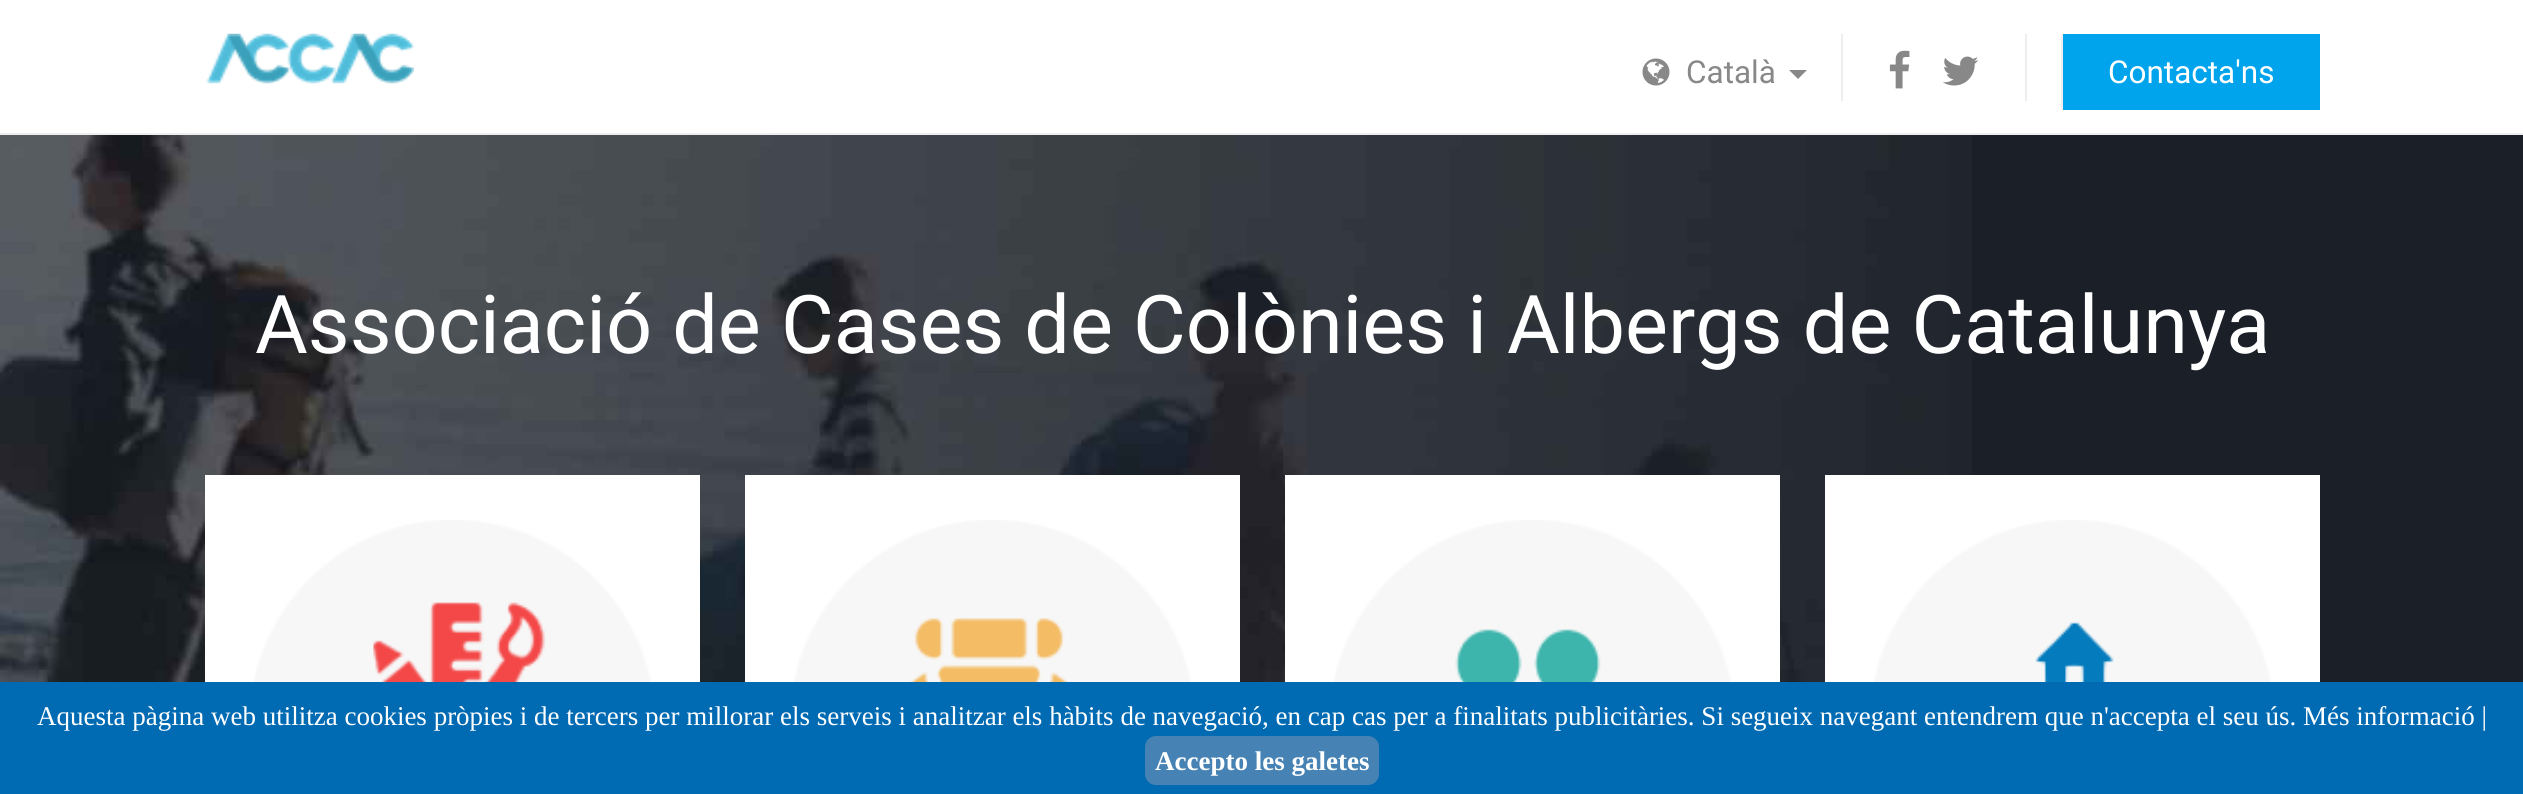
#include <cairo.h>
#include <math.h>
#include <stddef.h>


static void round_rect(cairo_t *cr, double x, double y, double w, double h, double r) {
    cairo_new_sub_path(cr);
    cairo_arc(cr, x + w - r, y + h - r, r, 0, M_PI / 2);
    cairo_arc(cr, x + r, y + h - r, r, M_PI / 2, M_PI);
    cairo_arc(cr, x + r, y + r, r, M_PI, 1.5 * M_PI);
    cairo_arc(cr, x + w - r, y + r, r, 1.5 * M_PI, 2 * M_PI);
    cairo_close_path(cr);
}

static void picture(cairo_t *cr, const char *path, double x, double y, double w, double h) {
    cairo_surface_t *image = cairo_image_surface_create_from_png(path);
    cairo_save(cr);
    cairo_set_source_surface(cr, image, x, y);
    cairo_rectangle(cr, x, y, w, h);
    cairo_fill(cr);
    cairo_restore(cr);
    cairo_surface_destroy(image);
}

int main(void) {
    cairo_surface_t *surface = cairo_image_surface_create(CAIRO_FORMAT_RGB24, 2523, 794);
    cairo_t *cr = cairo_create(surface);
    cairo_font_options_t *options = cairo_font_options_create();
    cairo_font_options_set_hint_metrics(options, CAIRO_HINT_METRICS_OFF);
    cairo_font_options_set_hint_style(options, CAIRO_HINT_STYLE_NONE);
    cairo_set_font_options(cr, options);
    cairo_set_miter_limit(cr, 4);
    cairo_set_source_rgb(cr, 1, 1, 1);
    cairo_paint(cr);
    cairo_set_source_rgb(cr, 0.933, 0.933, 0.933);
    cairo_rectangle(cr, 0, 133, 2523, 2);
    cairo_fill(cr);
    picture(cr, "img1.png", 206, 33, 208, 51);
    picture(cr, "img2.png", 1642, 58, 28, 28);
    cairo_select_font_face(cr, "Roboto", CAIRO_FONT_SLANT_NORMAL, CAIRO_FONT_WEIGHT_NORMAL);
    cairo_set_font_size(cr, 31.5);
    cairo_set_source_rgb(cr, 0.533, 0.533, 0.533);
    cairo_move_to(cr, 1686, 83);
    cairo_show_text(cr, "Català");
    cairo_new_path(cr);
    cairo_move_to(cr, 1789, 70);
    cairo_line_to(cr, 1807, 70);
    cairo_line_to(cr, 1798, 79);
    cairo_close_path(cr);
    cairo_fill(cr);
    cairo_set_source_rgb(cr, 0.933, 0.933, 0.933);
    cairo_rectangle(cr, 1841, 34, 2, 67);
    cairo_fill(cr);
    picture(cr, "img3.png", 1889, 50, 21, 39);
    picture(cr, "img4.png", 1943, 56, 36, 30);
    cairo_rectangle(cr, 2025, 34, 2, 67);
    cairo_fill(cr);
    cairo_set_source_rgb(cr, 0, 0.643, 0.922);
    cairo_rectangle(cr, 2063, 34, 257, 76);
    cairo_fill(cr);
    cairo_set_source_rgb(cr, 0.933, 0.933, 0.933);
    cairo_rectangle(cr, 2061, 34, 2, 76);
    cairo_fill(cr);
    cairo_set_source_rgb(cr, 1, 1, 1);
    cairo_move_to(cr, 2108, 83);
    cairo_show_text(cr, "Contacta'ns");
    picture(cr, "img5.png", 0, 135, 2523, 547);
    cairo_set_font_size(cr, 81);
    cairo_move_to(cr, 255, 353);
    cairo_show_text(cr, "Associació de Cases de Colònies i Albergs de Catalunya");
    cairo_rectangle(cr, 205, 475, 495, 207);
    cairo_fill(cr);
    picture(cr, "img6.png", 250, 520, 405, 162);
    cairo_rectangle(cr, 745, 475, 495, 207);
    cairo_fill(cr);
    picture(cr, "img7.png", 790, 520, 405, 162);
    cairo_rectangle(cr, 1285, 475, 495, 207);
    cairo_fill(cr);
    picture(cr, "img8.png", 1330, 520, 405, 162);
    cairo_rectangle(cr, 1825, 475, 495, 207);
    cairo_fill(cr);
    picture(cr, "img9.png", 1870, 520, 405, 162);
    cairo_set_source_rgb(cr, 0, 0.416, 0.702);
    cairo_rectangle(cr, 0, 682, 2523, 112);
    cairo_fill(cr);
    cairo_select_font_face(cr, "Liberation Serif", CAIRO_FONT_SLANT_NORMAL, CAIRO_FONT_WEIGHT_NORMAL);
    cairo_set_font_size(cr, 27);
    cairo_set_source_rgb(cr, 1, 1, 1);
    cairo_move_to(cr, 37, 725);
    cairo_show_text(cr, "Aquesta pàgina web utilitza cookies pròpies i de tercers per millorar els serveis i analitzar els hàbits de navegació, en cap cas per a finalitats publicitàries. Si segueix navegant entendrem que n'accepta el seu ús. Més informació |");
    cairo_set_source_rgb(cr, 0.275, 0.51, 0.706);
    round_rect(cr, 1145, 736, 234, 49, 11);
    cairo_fill(cr);
    cairo_select_font_face(cr, "Liberation Serif", CAIRO_FONT_SLANT_NORMAL, CAIRO_FONT_WEIGHT_BOLD);
    cairo_set_source_rgb(cr, 1, 1, 1);
    cairo_move_to(cr, 1155, 770);
    cairo_show_text(cr, "Accepto les galetes");
    cairo_surface_write_to_png(surface, "page.png");
    cairo_font_options_destroy(options);
    cairo_destroy(cr);
    cairo_surface_destroy(surface);
    return 0;
}
